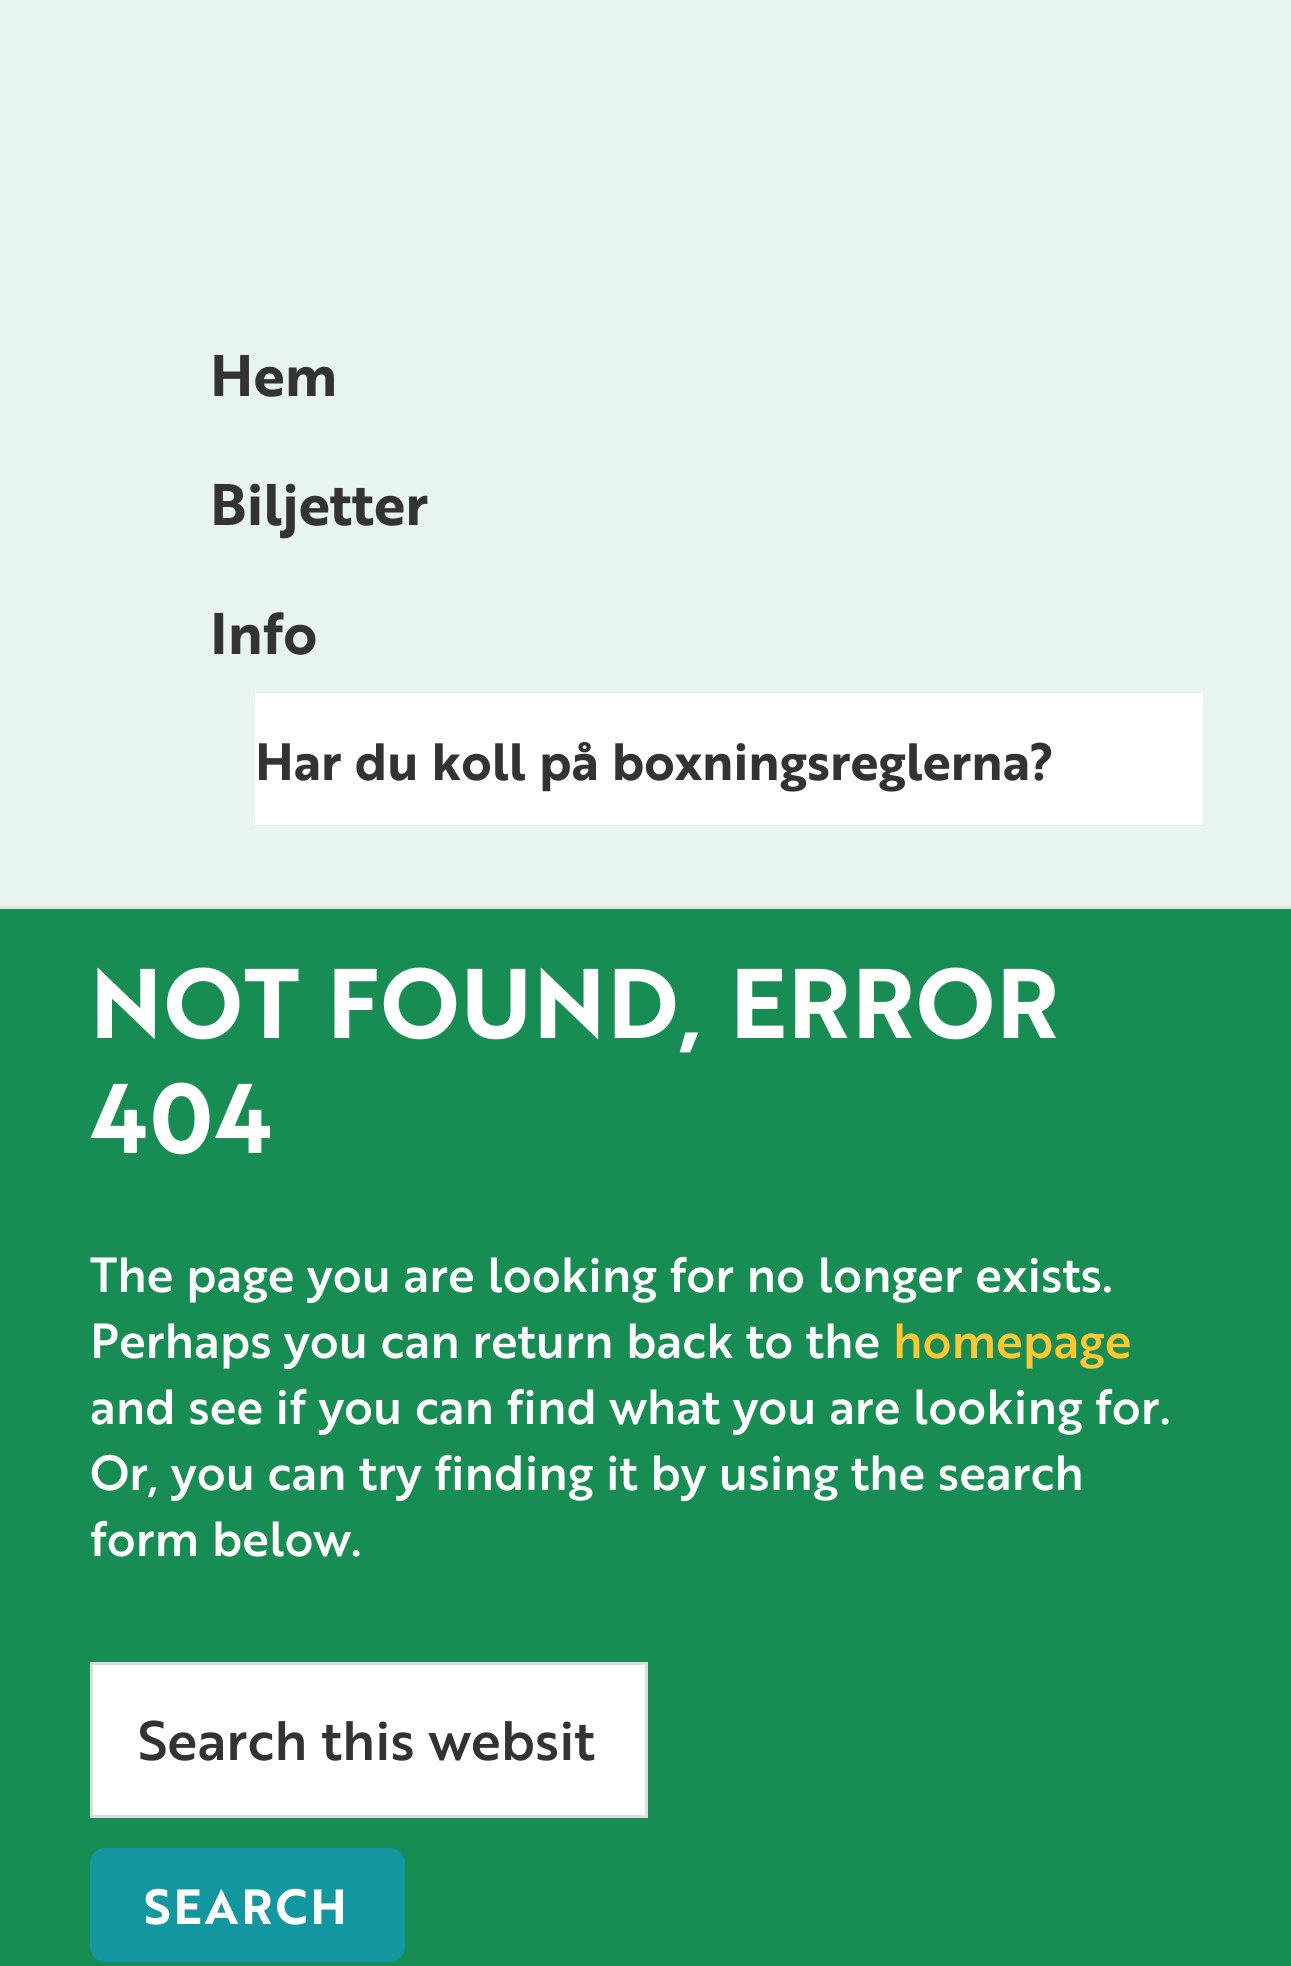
#include <cairo.h>
#include <math.h>
#include <stddef.h>


static void spaced_text(cairo_t *cr, double x, double y, const char *s, double letter, double word) {
    cairo_move_to(cr, x, y);
    while (*s) {
        char ch[5] = {0};
        int n = 0;
        do ch[n++] = *s++; while ((*s & 0xC0) == 0x80);
        cairo_show_text(cr, ch);
        cairo_rel_move_to(cr, letter + word * (*ch == ' '), 0);
    }
}

static void round_rect(cairo_t *cr, double x, double y, double w, double h, double r) {
    cairo_new_sub_path(cr);
    cairo_arc(cr, x + w - r, y + h - r, r, 0, M_PI / 2);
    cairo_arc(cr, x + r, y + h - r, r, M_PI / 2, M_PI);
    cairo_arc(cr, x + r, y + r, r, M_PI, 1.5 * M_PI);
    cairo_arc(cr, x + w - r, y + r, r, 1.5 * M_PI, 2 * M_PI);
    cairo_close_path(cr);
}

int main(void) {
    cairo_surface_t *surface = cairo_image_surface_create(CAIRO_FORMAT_RGB24, 1291, 1966);
    cairo_t *cr = cairo_create(surface);
    cairo_font_options_t *options = cairo_font_options_create();
    cairo_font_options_set_hint_metrics(options, CAIRO_HINT_METRICS_OFF);
    cairo_font_options_set_hint_style(options, CAIRO_HINT_STYLE_NONE);
    cairo_set_font_options(cr, options);
    cairo_set_miter_limit(cr, 4);
    cairo_set_source_rgb(cr, 0.09, 0.553, 0.325);
    cairo_paint(cr);
    cairo_set_source_rgb(cr, 0.91, 0.957, 0.933);
    cairo_rectangle(cr, 0, 0, 1291, 906);
    cairo_fill(cr);
    cairo_set_source_rgb(cr, 0.863, 0.902, 0.882);
    cairo_rectangle(cr, 0, 906, 1291, 3);
    cairo_fill(cr);
    cairo_select_font_face(cr, "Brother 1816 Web", CAIRO_FONT_SLANT_NORMAL, CAIRO_FONT_WEIGHT_BOLD);
    cairo_set_font_size(cr, 57);
    cairo_set_source_rgb(cr, 0.2, 0.2, 0.2);
    cairo_move_to(cr, 210, 396);
    cairo_show_text(cr, "Hem");
    cairo_move_to(cr, 210, 525);
    cairo_show_text(cr, "Biljetter");
    cairo_move_to(cr, 210, 654);
    cairo_show_text(cr, "Info");
    cairo_set_source_rgb(cr, 1, 1, 1);
    cairo_rectangle(cr, 255, 693, 948, 132);
    cairo_fill(cr);
    cairo_set_font_size(cr, 51);
    cairo_set_source_rgb(cr, 0.2, 0.2, 0.2);
    cairo_move_to(cr, 255, 780);
    cairo_show_text(cr, "Har du koll på boxningsreglerna?");
    cairo_set_font_size(cr, 96);
    cairo_set_source_rgb(cr, 1, 1, 1);
    spaced_text(cr, 90, 1038, "NOT FOUND, ERROR", 1.5, 0);
    spaced_text(cr, 90, 1153, "404", 1.5, 0);
    cairo_select_font_face(cr, "Brother 1816 Web Medium", CAIRO_FONT_SLANT_NORMAL, CAIRO_FONT_WEIGHT_NORMAL);
    cairo_set_font_size(cr, 48);
    cairo_move_to(cr, 90, 1292);
    cairo_show_text(cr, "The page you are looking for no longer exists.");
    cairo_move_to(cr, 90, 1358);
    cairo_show_text(cr, "Perhaps you can return back to the");
    cairo_set_source_rgb(cr, 1, 0.78, 0.204);
    cairo_move_to(cr, 893, 1358);
    cairo_show_text(cr, "homepage");
    cairo_set_source_rgb(cr, 1, 1, 1);
    cairo_move_to(cr, 90, 1424);
    cairo_show_text(cr, "and see if you can find what you are looking for.");
    cairo_move_to(cr, 90, 1490);
    cairo_show_text(cr, "Or, you can try finding it by using the search");
    cairo_move_to(cr, 90, 1556);
    cairo_show_text(cr, "form below.");
    cairo_rectangle(cr, 91.5, 1663.5, 555, 153);
    cairo_fill_preserve(cr);
    cairo_set_source_rgb(cr, 0.867, 0.867, 0.867);
    cairo_set_line_width(cr, 3);
    cairo_stroke(cr);
    cairo_set_font_size(cr, 54);
    cairo_set_source_rgb(cr, 0.2, 0.2, 0.2);
    cairo_move_to(cr, 138, 1760);
    cairo_show_text(cr, "Search this websit");
    cairo_set_source_rgb(cr, 0.071, 0.588, 0.627);
    round_rect(cr, 90, 1848, 315, 114, 15);
    cairo_fill(cr);
    cairo_select_font_face(cr, "Brother 1816 Web", CAIRO_FONT_SLANT_NORMAL, CAIRO_FONT_WEIGHT_BOLD);
    cairo_set_font_size(cr, 48);
    cairo_set_source_rgb(cr, 1, 1, 1);
    spaced_text(cr, 144, 1924, "SEARCH", 3, 0);
    cairo_surface_write_to_png(surface, "page.png");
    cairo_font_options_destroy(options);
    cairo_destroy(cr);
    cairo_surface_destroy(surface);
    return 0;
}
